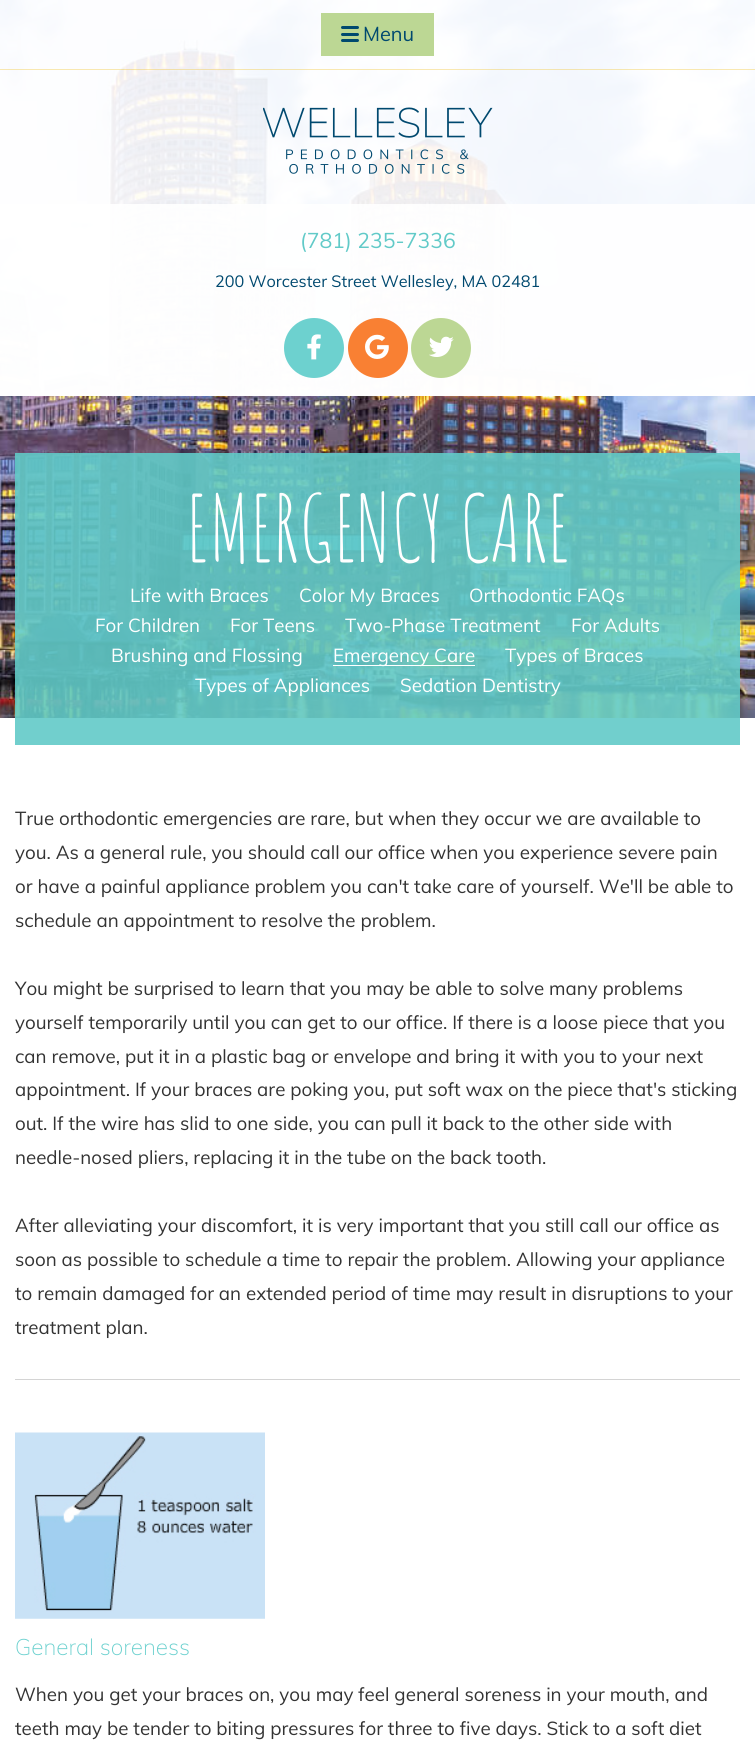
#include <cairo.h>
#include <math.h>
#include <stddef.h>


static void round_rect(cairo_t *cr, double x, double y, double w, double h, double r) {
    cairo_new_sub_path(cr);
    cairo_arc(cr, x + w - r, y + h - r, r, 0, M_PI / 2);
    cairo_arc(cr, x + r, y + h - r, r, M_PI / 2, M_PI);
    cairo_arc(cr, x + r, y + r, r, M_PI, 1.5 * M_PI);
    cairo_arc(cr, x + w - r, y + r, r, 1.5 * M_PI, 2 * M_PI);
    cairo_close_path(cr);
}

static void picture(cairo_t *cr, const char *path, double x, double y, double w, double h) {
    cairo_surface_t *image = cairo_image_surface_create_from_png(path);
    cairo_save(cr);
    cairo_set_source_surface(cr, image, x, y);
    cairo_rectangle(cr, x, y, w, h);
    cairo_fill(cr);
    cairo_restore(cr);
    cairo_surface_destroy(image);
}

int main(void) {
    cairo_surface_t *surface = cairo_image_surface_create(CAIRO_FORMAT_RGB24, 755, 1756);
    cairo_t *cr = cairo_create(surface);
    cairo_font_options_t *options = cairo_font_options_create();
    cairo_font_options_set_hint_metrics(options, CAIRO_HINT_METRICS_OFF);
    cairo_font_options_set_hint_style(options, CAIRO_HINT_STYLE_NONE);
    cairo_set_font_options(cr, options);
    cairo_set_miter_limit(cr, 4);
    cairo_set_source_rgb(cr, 1, 1, 1);
    cairo_paint(cr);
    picture(cr, "img1.png", 0, 0, 755, 718);
    cairo_set_source_rgba(cr, 1, 1, 1, 0.9);
    cairo_rectangle(cr, 0, 0, 755, 396);
    cairo_fill(cr);
    cairo_set_source_rgba(cr, 0.957, 0.788, 0.243, 0.4);
    cairo_rectangle(cr, 0, 69, 755, 1);
    cairo_fill(cr);
    cairo_set_source_rgb(cr, 0.737, 0.843, 0.58);
    cairo_rectangle(cr, 321, 13, 113, 43);
    cairo_fill(cr);
    cairo_set_source_rgb(cr, 0, 0.286, 0.435);
    round_rect(cr, 341, 26, 18, 3, 1.5);
    cairo_fill(cr);
    round_rect(cr, 341, 33, 18, 3, 1.5);
    cairo_fill(cr);
    round_rect(cr, 341, 39, 18, 3, 1.5);
    cairo_fill(cr);
    cairo_select_font_face(cr, "Muli", CAIRO_FONT_SLANT_NORMAL, CAIRO_FONT_WEIGHT_NORMAL);
    cairo_set_font_size(cr, 20);
    cairo_move_to(cr, 363, 41);
    cairo_show_text(cr, "Menu");
    picture(cr, "img2.png", 263, 107, 230, 67);
    cairo_set_source_rgba(cr, 1, 1, 1, 0.9);
    cairo_rectangle(cr, 0, 204, 755, 114);
    cairo_fill(cr);
    cairo_set_font_size(cr, 21.25);
    cairo_set_source_rgb(cr, 0.38, 0.792, 0.784);
    cairo_move_to(cr, 300, 248);
    cairo_show_text(cr, "(781) 235-7336");
    cairo_set_font_size(cr, 16.25);
    cairo_set_source_rgb(cr, 0, 0.286, 0.435);
    cairo_move_to(cr, 215, 287);
    cairo_show_text(cr, "200 Worcester Street Wellesley, MA 02481");
    cairo_set_source_rgba(cr, 1, 1, 1, 0.9);
    cairo_rectangle(cr, 0, 318, 755, 78);
    cairo_fill(cr);
    cairo_set_source_rgb(cr, 0.427, 0.82, 0.812);
    cairo_arc(cr, 314, 348, 30, 0, 2 * M_PI);
    cairo_fill(cr);
    picture(cr, "img3.png", 307, 334, 14, 26);
    cairo_set_source_rgb(cr, 0.973, 0.502, 0.2);
    cairo_arc(cr, 378, 348, 30, 0, 2 * M_PI);
    cairo_fill(cr);
    picture(cr, "img4.png", 365, 334, 24, 25);
    cairo_set_source_rgb(cr, 0.737, 0.843, 0.58);
    cairo_arc(cr, 441, 348, 30, 0, 2 * M_PI);
    cairo_fill(cr);
    picture(cr, "img5.png", 429, 336, 25, 21);
    cairo_set_source_rgba(cr, 0.384, 0.792, 0.784, 0.9);
    cairo_rectangle(cr, 15, 453, 725, 292);
    cairo_fill(cr);
    cairo_select_font_face(cr, "Amatic SC", CAIRO_FONT_SLANT_NORMAL, CAIRO_FONT_WEIGHT_NORMAL);
    cairo_set_font_size(cr, 91);
    cairo_set_source_rgb(cr, 1, 1, 1);
    cairo_move_to(cr, 186, 562);
    cairo_show_text(cr, "EMERGENCY CARE");
    cairo_select_font_face(cr, "Muli", CAIRO_FONT_SLANT_NORMAL, CAIRO_FONT_WEIGHT_NORMAL);
    cairo_set_font_size(cr, 18.75);
    cairo_move_to(cr, 130, 602);
    cairo_show_text(cr, "Life with Braces");
    cairo_move_to(cr, 299, 602);
    cairo_show_text(cr, "Color My Braces");
    cairo_move_to(cr, 469, 602);
    cairo_show_text(cr, "Orthodontic FAQs");
    cairo_move_to(cr, 95, 632);
    cairo_show_text(cr, "For Children");
    cairo_move_to(cr, 230, 632);
    cairo_show_text(cr, "For Teens");
    cairo_move_to(cr, 345, 632);
    cairo_show_text(cr, "Two-Phase Treatment");
    cairo_move_to(cr, 571, 632);
    cairo_show_text(cr, "For Adults");
    cairo_move_to(cr, 111, 662);
    cairo_show_text(cr, "Brushing and Flossing");
    cairo_move_to(cr, 333, 662);
    cairo_show_text(cr, "Emergency Care");
    cairo_rectangle(cr, 333, 665, 142, 1);
    cairo_fill(cr);
    cairo_move_to(cr, 505, 662);
    cairo_show_text(cr, "Types of Braces");
    cairo_move_to(cr, 195, 692);
    cairo_show_text(cr, "Types of Appliances");
    cairo_move_to(cr, 400, 692);
    cairo_show_text(cr, "Sedation Dentistry");
    cairo_set_source_rgb(cr, 0.2, 0.2, 0.2);
    cairo_move_to(cr, 15, 825);
    cairo_show_text(cr, "True orthodontic emergencies are rare, but when they occur we are available to");
    cairo_move_to(cr, 15, 859);
    cairo_show_text(cr, "you. As a general rule, you should call our office when you experience severe pain");
    cairo_move_to(cr, 15, 893);
    cairo_show_text(cr, "or have a painful appliance problem you can't take care of yourself. We'll be able to");
    cairo_move_to(cr, 15, 927);
    cairo_show_text(cr, "schedule an appointment to resolve the problem.");
    cairo_move_to(cr, 15, 995);
    cairo_show_text(cr, "You might be surprised to learn that you may be able to solve many problems");
    cairo_move_to(cr, 15, 1029);
    cairo_show_text(cr, "yourself temporarily until you can get to our office. If there is a loose piece that you");
    cairo_move_to(cr, 15, 1063);
    cairo_show_text(cr, "can remove, put it in a plastic bag or envelope and bring it with you to your next");
    cairo_move_to(cr, 15, 1096);
    cairo_show_text(cr, "appointment. If your braces are poking you, put soft wax on the piece that's sticking");
    cairo_move_to(cr, 15, 1130);
    cairo_show_text(cr, "out. If the wire has slid to one side, you can pull it back to the other side with");
    cairo_move_to(cr, 15, 1164);
    cairo_show_text(cr, "needle-nosed pliers, replacing it in the tube on the back tooth.");
    cairo_move_to(cr, 15, 1232);
    cairo_show_text(cr, "After alleviating your discomfort, it is very important that you still call our office as");
    cairo_move_to(cr, 15, 1266);
    cairo_show_text(cr, "soon as possible to schedule a time to repair the problem. Allowing your appliance");
    cairo_move_to(cr, 15, 1300);
    cairo_show_text(cr, "to remain damaged for an extended period of time may result in disruptions to your");
    cairo_move_to(cr, 15, 1334);
    cairo_show_text(cr, "treatment plan.");
    cairo_set_source_rgb(cr, 0.831, 0.831, 0.831);
    cairo_rectangle(cr, 15, 1379, 725, 1);
    cairo_fill(cr);
    picture(cr, "img6.png", 15, 1432, 250, 187);
    cairo_select_font_face(cr, "Muli ExtraLight", CAIRO_FONT_SLANT_NORMAL, CAIRO_FONT_WEIGHT_NORMAL);
    cairo_set_font_size(cr, 22.5);
    cairo_set_source_rgb(cr, 0.427, 0.82, 0.812);
    cairo_move_to(cr, 15, 1655);
    cairo_show_text(cr, "General soreness");
    cairo_select_font_face(cr, "Muli", CAIRO_FONT_SLANT_NORMAL, CAIRO_FONT_WEIGHT_NORMAL);
    cairo_set_font_size(cr, 18.75);
    cairo_set_source_rgb(cr, 0.2, 0.2, 0.2);
    cairo_move_to(cr, 15, 1701);
    cairo_show_text(cr, "When you get your braces on, you may feel general soreness in your mouth, and");
    cairo_move_to(cr, 15, 1735);
    cairo_show_text(cr, "teeth may be tender to biting pressures for three to five days. Stick to a soft diet");
    cairo_surface_write_to_png(surface, "page.png");
    cairo_font_options_destroy(options);
    cairo_destroy(cr);
    cairo_surface_destroy(surface);
    return 0;
}
